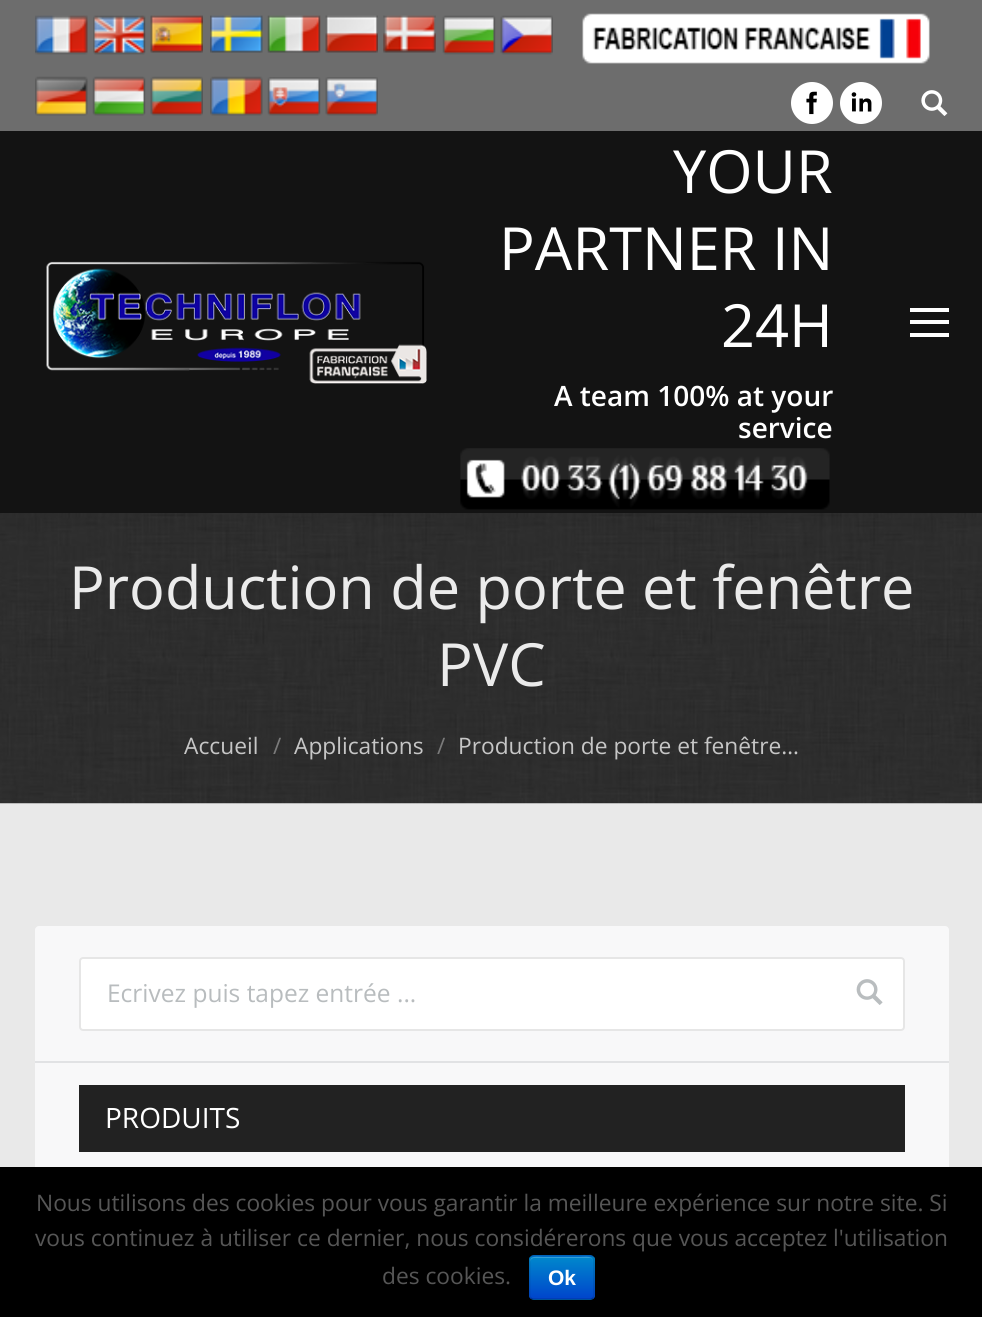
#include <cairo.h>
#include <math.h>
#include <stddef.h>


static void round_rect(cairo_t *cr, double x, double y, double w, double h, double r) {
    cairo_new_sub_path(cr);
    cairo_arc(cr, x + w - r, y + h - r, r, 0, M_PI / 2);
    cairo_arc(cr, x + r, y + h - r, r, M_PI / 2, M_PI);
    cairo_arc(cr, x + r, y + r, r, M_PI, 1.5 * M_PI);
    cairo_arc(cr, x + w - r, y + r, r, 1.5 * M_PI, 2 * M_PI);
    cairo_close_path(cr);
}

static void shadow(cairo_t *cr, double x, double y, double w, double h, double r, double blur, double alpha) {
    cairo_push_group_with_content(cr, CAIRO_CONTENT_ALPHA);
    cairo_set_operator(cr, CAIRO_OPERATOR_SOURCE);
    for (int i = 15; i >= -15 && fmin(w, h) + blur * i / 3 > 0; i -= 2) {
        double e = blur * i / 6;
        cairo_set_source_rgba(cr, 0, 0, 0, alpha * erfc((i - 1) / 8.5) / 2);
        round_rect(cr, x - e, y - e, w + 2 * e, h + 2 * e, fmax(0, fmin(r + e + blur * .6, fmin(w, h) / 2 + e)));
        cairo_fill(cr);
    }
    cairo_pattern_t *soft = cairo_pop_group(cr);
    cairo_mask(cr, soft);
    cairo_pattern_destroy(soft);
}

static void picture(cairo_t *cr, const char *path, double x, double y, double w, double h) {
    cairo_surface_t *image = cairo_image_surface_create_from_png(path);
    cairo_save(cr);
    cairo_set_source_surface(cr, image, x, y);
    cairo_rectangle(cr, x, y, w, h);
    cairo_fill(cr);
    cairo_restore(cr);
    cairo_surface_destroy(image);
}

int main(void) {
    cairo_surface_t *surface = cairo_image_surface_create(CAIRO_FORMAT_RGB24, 982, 1317);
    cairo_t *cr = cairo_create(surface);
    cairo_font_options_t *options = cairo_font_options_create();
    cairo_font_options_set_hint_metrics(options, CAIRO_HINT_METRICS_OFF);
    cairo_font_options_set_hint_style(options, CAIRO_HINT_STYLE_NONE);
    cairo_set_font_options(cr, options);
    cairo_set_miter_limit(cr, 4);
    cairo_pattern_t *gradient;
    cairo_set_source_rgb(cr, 0.914, 0.914, 0.914);
    cairo_paint(cr);
    picture(cr, "img22.png", 0, 513, 982, 291);
    cairo_set_source_rgb(cr, 0, 0, 0);
    shadow(cr, -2, -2, 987, 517, 0, 13, 0.07);
    cairo_set_source_rgb(cr, 0.075, 0.078, 0.078);
    cairo_rectangle(cr, 0, 131, 982, 382);
    cairo_fill(cr);
    cairo_set_source_rgb(cr, 0.427, 0.427, 0.427);
    cairo_rectangle(cr, 0, 0, 982, 131);
    cairo_fill(cr);
    picture(cr, "img1.png", 35, 15, 53, 40);
    picture(cr, "img2.png", 93, 15, 53, 40);
    picture(cr, "img3.png", 150, 15, 53, 38);
    picture(cr, "img4.png", 210, 15, 53, 38);
    picture(cr, "img5.png", 267, 15, 54, 38);
    picture(cr, "img6.png", 325, 15, 53, 38);
    picture(cr, "img7.png", 383, 15, 53, 38);
    picture(cr, "img8.png", 442, 15, 54, 40);
    picture(cr, "img9.png", 500, 15, 53, 40);
    picture(cr, "img10.png", 35, 76, 53, 40);
    picture(cr, "img11.png", 92, 76, 54, 40);
    picture(cr, "img12.png", 150, 76, 53, 40);
    picture(cr, "img13.png", 210, 76, 53, 40);
    picture(cr, "img14.png", 267, 77, 54, 39);
    picture(cr, "img15.png", 325, 77, 53, 39);
    picture(cr, "img16.png", 582, 13, 348, 51);
    cairo_set_source_rgb(cr, 1, 1, 1);
    cairo_arc(cr, 812, 103, 21, 0, 2 * M_PI);
    cairo_fill(cr);
    picture(cr, "img17.png", 806, 91, 11, 24);
    cairo_arc(cr, 861, 103, 21, 0, 2 * M_PI);
    cairo_fill(cr);
    picture(cr, "img18.png", 851, 92, 21, 20);
    picture(cr, "img19.png", 921, 90, 27, 26);
    picture(cr, "img20.png", 46, 261, 381, 123);
    cairo_select_font_face(cr, "Open Sans", CAIRO_FONT_SLANT_NORMAL, CAIRO_FONT_WEIGHT_NORMAL);
    cairo_set_font_size(cr, 59.5);
    cairo_move_to(cr, 673, 193);
    cairo_show_text(cr, "YOUR");
    cairo_move_to(cr, 499, 270);
    cairo_show_text(cr, "PARTNER IN");
    cairo_move_to(cr, 721, 347);
    cairo_show_text(cr, "24H");
    cairo_select_font_face(cr, "Open Sans SemiBold", CAIRO_FONT_SLANT_NORMAL, CAIRO_FONT_WEIGHT_NORMAL);
    cairo_set_font_size(cr, 28);
    cairo_move_to(cr, 554, 406);
    cairo_show_text(cr, "A team 100% at your");
    cairo_move_to(cr, 738, 438);
    cairo_show_text(cr, "service");
    picture(cr, "img21.png", 460, 448, 370, 62);
    cairo_rectangle(cr, 910, 320, 39, 4);
    cairo_fill(cr);
    cairo_rectangle(cr, 910, 308, 39, 4);
    cairo_fill(cr);
    cairo_rectangle(cr, 910, 333, 39, 4);
    cairo_fill(cr);
    cairo_select_font_face(cr, "Open Sans", CAIRO_FONT_SLANT_NORMAL, CAIRO_FONT_WEIGHT_NORMAL);
    cairo_set_font_size(cr, 59.5);
    cairo_set_source_rgb(cr, 0.918, 0.918, 0.918);
    cairo_move_to(cr, 69, 609);
    cairo_show_text(cr, "Production de porte et fenêtre");
    cairo_move_to(cr, 437, 686);
    cairo_show_text(cr, "PVC");
    cairo_set_font_size(cr, 22.75);
    cairo_set_source_rgb(cr, 0.776, 0.776, 0.776);
    cairo_move_to(cr, 184, 754);
    cairo_show_text(cr, "Accueil");
    cairo_set_source_rgb(cr, 0.478, 0.478, 0.478);
    cairo_move_to(cr, 273, 754);
    cairo_show_text(cr, "/");
    cairo_set_source_rgb(cr, 0.776, 0.776, 0.776);
    cairo_move_to(cr, 294, 754);
    cairo_show_text(cr, "Applications");
    cairo_set_source_rgb(cr, 0.478, 0.478, 0.478);
    cairo_move_to(cr, 437, 754);
    cairo_show_text(cr, "/");
    cairo_set_source_rgb(cr, 0.776, 0.776, 0.776);
    cairo_move_to(cr, 458, 754);
    cairo_show_text(cr, "Production de porte et fenêtre…");
    cairo_set_source_rgb(cr, 0.969, 0.969, 0.973);
    round_rect(cr, 35, 926, 914, 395, 4);
    cairo_fill(cr);
    cairo_set_source_rgb(cr, 1, 1, 1);
    round_rect(cr, 80, 958, 824, 72, 3);
    cairo_fill_preserve(cr);
    cairo_set_source_rgb(cr, 0.902, 0.902, 0.902);
    cairo_stroke(cr);
    cairo_set_font_size(cr, 24.5);
    cairo_set_source_rgb(cr, 0.722, 0.737, 0.745);
    cairo_move_to(cr, 107, 1002);
    cairo_show_text(cr, "Ecrivez puis tapez entrée ...");
    picture(cr, "img23.png", 856, 979, 27, 26);
    cairo_set_source_rgb(cr, 0.882, 0.886, 0.894);
    cairo_rectangle(cr, 35, 1061, 914, 2);
    cairo_fill(cr);
    cairo_set_source_rgb(cr, 0.133, 0.133, 0.133);
    cairo_rectangle(cr, 79, 1085, 826, 67);
    cairo_fill(cr);
    cairo_set_font_size(cr, 28);
    cairo_set_source_rgb(cr, 1, 1, 1);
    cairo_move_to(cr, 105, 1128);
    cairo_show_text(cr, "PRODUITS");
    cairo_set_source_rgb(cr, 0, 0, 0);
    cairo_rectangle(cr, 0, 1167, 982, 150);
    cairo_fill(cr);
    cairo_set_font_size(cr, 22.75);
    cairo_set_source_rgb(cr, 0.337, 0.337, 0.337);
    cairo_move_to(cr, 36, 1211);
    cairo_show_text(cr, "Nous utilisons des cookies pour vous garantir la meilleure expérience sur notre site. Si");
    cairo_move_to(cr, 35, 1246);
    cairo_show_text(cr, "vous continuez à utiliser ce dernier, nous considérerons que vous acceptez l'utilisation");
    cairo_move_to(cr, 382, 1284);
    cairo_show_text(cr, "des cookies.");
    cairo_set_source_rgb(cr, 0, 0.427, 0.8);
    round_rect(cr, 529, 1255, 66, 45, 5);
    cairo_fill(cr);
    cairo_save(cr);
    round_rect(cr, 529, 1255, 66, 45, 5);
    cairo_clip(cr);
    gradient = cairo_pattern_create_linear(562, 1257, 562, 1299);
    cairo_pattern_add_color_stop_rgba(gradient, 0, 0, 0.533, 0.8, 1);
    cairo_pattern_add_color_stop_rgba(gradient, 1, 0, 0.267, 0.8, 1);
    cairo_set_source(cr, gradient);
    cairo_pattern_destroy(gradient);
    cairo_rectangle(cr, 529, 1257, 66, 42);
    cairo_fill(cr);
    cairo_restore(cr);
    cairo_set_source_rgb(cr, 0.2, 0.624, 0.839);
    cairo_new_path(cr);
    cairo_move_to(cr, 534, 1258);
    cairo_line_to(cr, 590, 1258);
    cairo_curve_to(cr, 592, 1258, 593, 1260, 593, 1262);
    cairo_curve_to(cr, 593, 1255, 585, 1257, 580, 1257);
    cairo_line_to(cr, 543, 1257);
    cairo_curve_to(cr, 538, 1257, 530, 1255, 530, 1262);
    cairo_curve_to(cr, 530, 1260, 532, 1258, 534, 1258);
    cairo_close_path(cr);
    cairo_fill(cr);
    cairo_new_path(cr);
    cairo_move_to(cr, 593, 1298);
    cairo_curve_to(cr, 592, 1299, 591, 1299.5, 590, 1299.5);
    cairo_line_to(cr, 534, 1299.5);
    cairo_curve_to(cr, 532.5, 1299.5, 531.5, 1299, 530.5, 1298);
    cairo_set_source_rgba(cr, 0, 0, 0, 0.25);
    cairo_set_line_width(cr, 1.8);
    cairo_stroke(cr);
    cairo_new_path(cr);
    cairo_move_to(cr, 530.5, 1298);
    cairo_curve_to(cr, 530, 1297.5, 529.5, 1296, 529.5, 1295);
    cairo_line_to(cr, 529.5, 1260);
    cairo_curve_to(cr, 529.5, 1259, 530, 1257.5, 530.5, 1257);
    cairo_curve_to(cr, 531.5, 1256, 532.5, 1255.5, 534, 1255.5);
    cairo_line_to(cr, 590, 1255.5);
    cairo_curve_to(cr, 591, 1255.5, 592, 1256, 593, 1257);
    cairo_curve_to(cr, 593.5, 1257.5, 594, 1259, 594, 1260);
    cairo_line_to(cr, 594, 1295);
    cairo_curve_to(cr, 594, 1296, 593.5, 1297.5, 593, 1298);
    cairo_set_source_rgba(cr, 0, 0, 0, 0.1);
    cairo_stroke(cr);
    cairo_select_font_face(cr, "Liberation Sans", CAIRO_FONT_SLANT_NORMAL, CAIRO_FONT_WEIGHT_BOLD);
    cairo_set_font_size(cr, 21);
    cairo_set_source_rgb(cr, 1, 1, 1);
    cairo_move_to(cr, 548, 1285);
    cairo_show_text(cr, "Ok");
    cairo_surface_write_to_png(surface, "page.png");
    cairo_font_options_destroy(options);
    cairo_destroy(cr);
    cairo_surface_destroy(surface);
    return 0;
}
